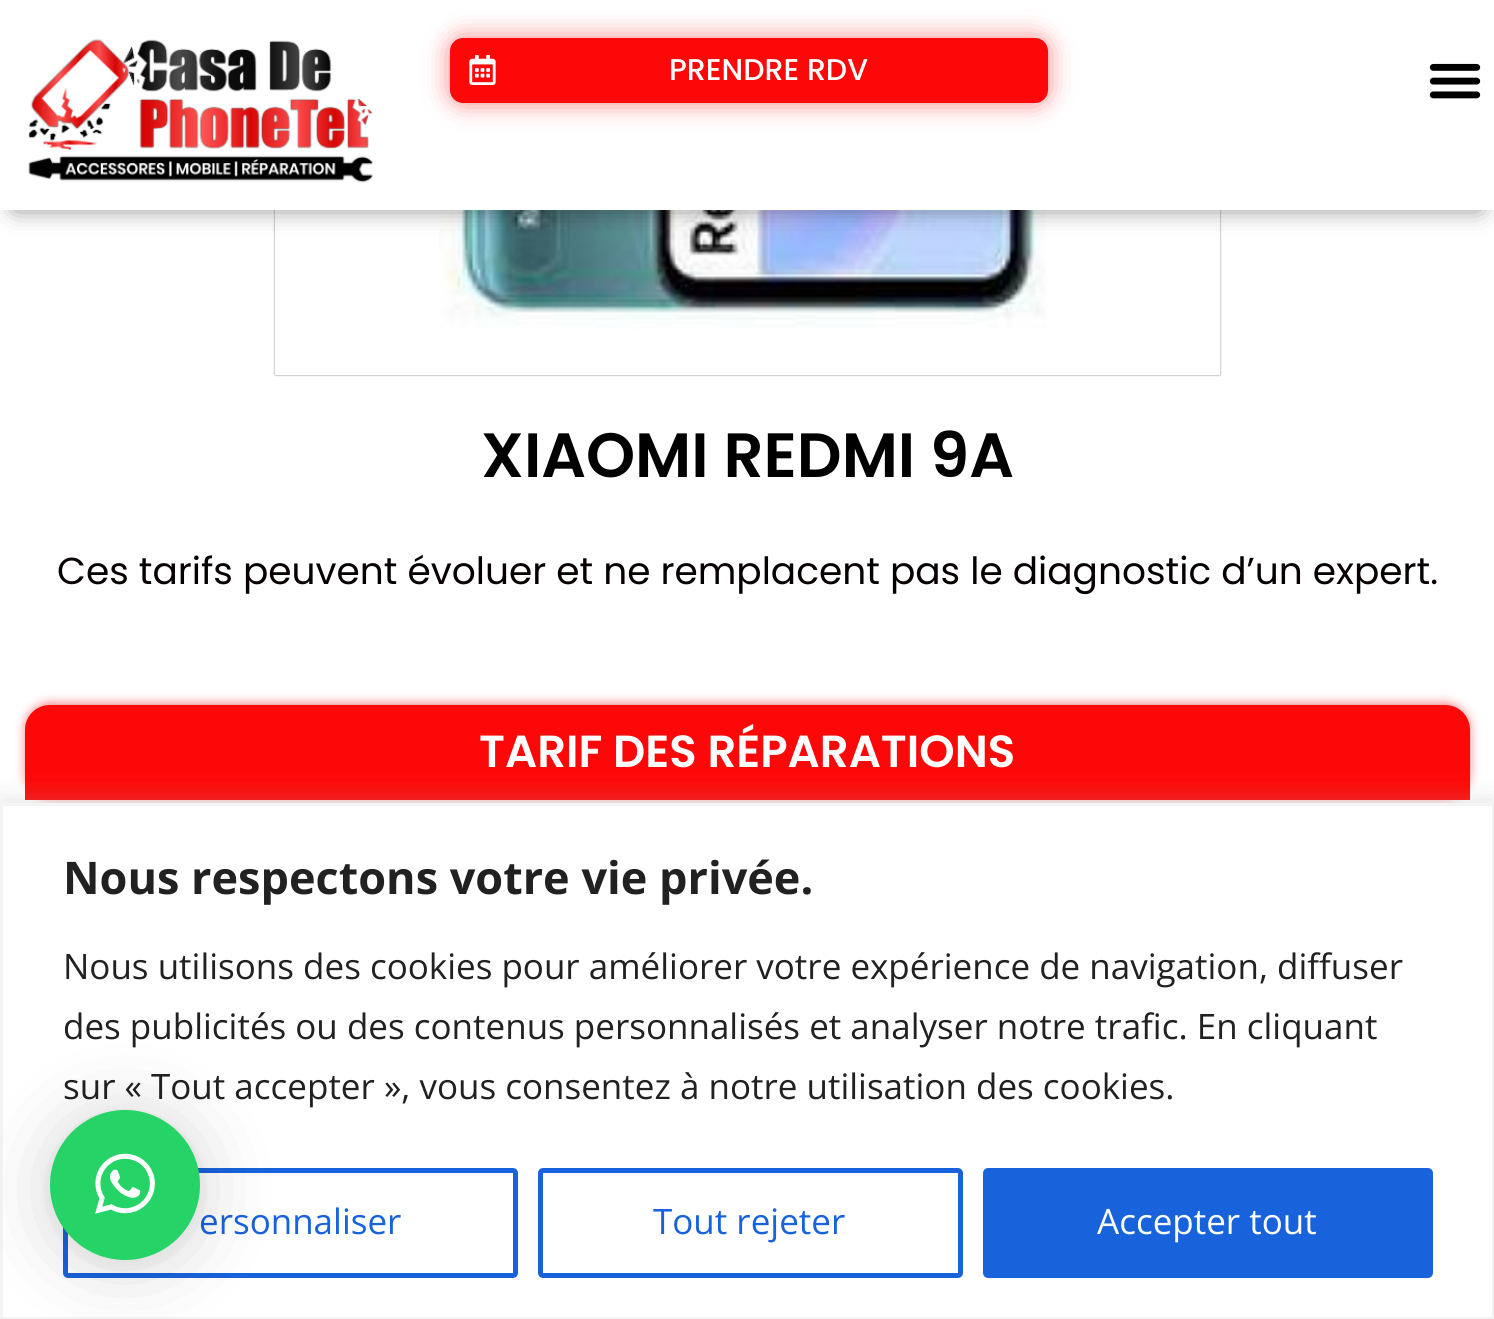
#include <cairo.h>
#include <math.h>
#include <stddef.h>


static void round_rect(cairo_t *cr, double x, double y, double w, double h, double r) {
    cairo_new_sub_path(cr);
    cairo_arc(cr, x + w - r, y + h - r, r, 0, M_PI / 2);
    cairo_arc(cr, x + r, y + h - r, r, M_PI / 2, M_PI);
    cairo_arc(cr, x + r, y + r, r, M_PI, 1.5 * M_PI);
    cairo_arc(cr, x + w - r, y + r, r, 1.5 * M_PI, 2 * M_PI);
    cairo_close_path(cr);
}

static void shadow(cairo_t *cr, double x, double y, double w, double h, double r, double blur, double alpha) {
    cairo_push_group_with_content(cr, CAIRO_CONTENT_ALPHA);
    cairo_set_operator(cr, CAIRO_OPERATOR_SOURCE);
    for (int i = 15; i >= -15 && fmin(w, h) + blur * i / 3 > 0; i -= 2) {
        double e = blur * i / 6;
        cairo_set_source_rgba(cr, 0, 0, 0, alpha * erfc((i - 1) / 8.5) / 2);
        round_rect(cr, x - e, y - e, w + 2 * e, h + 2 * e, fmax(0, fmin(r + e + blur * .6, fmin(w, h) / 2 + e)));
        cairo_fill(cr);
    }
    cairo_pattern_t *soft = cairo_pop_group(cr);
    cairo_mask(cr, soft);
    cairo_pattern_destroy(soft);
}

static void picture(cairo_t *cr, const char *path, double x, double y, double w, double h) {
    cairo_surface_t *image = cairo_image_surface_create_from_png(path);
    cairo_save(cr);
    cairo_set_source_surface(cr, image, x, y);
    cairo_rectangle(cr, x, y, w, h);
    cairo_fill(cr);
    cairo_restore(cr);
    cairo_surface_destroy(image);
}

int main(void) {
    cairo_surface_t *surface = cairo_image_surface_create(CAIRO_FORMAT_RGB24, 1494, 1319);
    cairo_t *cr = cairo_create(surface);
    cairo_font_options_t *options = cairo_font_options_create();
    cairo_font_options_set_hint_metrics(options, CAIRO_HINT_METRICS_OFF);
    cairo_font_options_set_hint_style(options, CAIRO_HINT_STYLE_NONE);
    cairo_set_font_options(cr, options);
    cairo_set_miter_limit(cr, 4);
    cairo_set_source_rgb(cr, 1, 1, 1);
    cairo_paint(cr);
    cairo_save(cr);
    cairo_set_fill_rule(cr, CAIRO_FILL_RULE_EVEN_ODD);
    cairo_new_path(cr);
    cairo_move_to(cr, 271, 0);
    cairo_line_to(cr, 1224, 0);
    cairo_line_to(cr, 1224, 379);
    cairo_line_to(cr, 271, 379);
    cairo_close_path(cr);
    cairo_move_to(cr, 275, -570);
    cairo_line_to(cr, 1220, -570);
    cairo_line_to(cr, 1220, 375);
    cairo_line_to(cr, 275, 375);
    cairo_close_path(cr);
    cairo_clip(cr);
    cairo_set_source_rgb(cr, 0, 0, 0);
    shadow(cr, 275, -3, 945, 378, 0, 1, 0.5);
    cairo_restore(cr);
    picture(cr, "img4.png", 439, 210, 607, 119);
    cairo_set_source_rgb(cr, 0, 0, 0);
    shadow(cr, 15, 28, 1465, 180, 0, 12.5, 0.5);
    cairo_set_source_rgb(cr, 1, 1, 1);
    cairo_rectangle(cr, 0, 0, 1494, 210);
    cairo_fill(cr);
    picture(cr, "img1.png", 28, 38, 346, 145);
    cairo_set_source_rgb(cr, 0.973, 0.02, 0.02);
    shadow(cr, 450, 38, 598, 65, 13, 12.5, 0.5);
    cairo_set_source_rgb(cr, 0.992, 0.035, 0.035);
    round_rect(cr, 450, 38, 598, 65, 13);
    cairo_fill(cr);
    picture(cr, "img2.png", 469, 55, 27, 30);
    cairo_select_font_face(cr, "Poppins Medium", CAIRO_FONT_SLANT_NORMAL, CAIRO_FONT_WEIGHT_NORMAL);
    cairo_set_font_size(cr, 30);
    cairo_set_source_rgb(cr, 1, 1, 1);
    cairo_move_to(cr, 669, 80);
    cairo_show_text(cr, "PRENDRE RDV");
    picture(cr, "img3.png", 1429, 63, 52, 36);
    cairo_select_font_face(cr, "Poppins SemiBold", CAIRO_FONT_SLANT_NORMAL, CAIRO_FONT_WEIGHT_NORMAL);
    cairo_set_font_size(cr, 62.5);
    cairo_set_source_rgb(cr, 0, 0, 0);
    cairo_move_to(cr, 481, 477);
    cairo_show_text(cr, "XIAOMI REDMI 9A");
    cairo_select_font_face(cr, "Poppins", CAIRO_FONT_SLANT_NORMAL, CAIRO_FONT_WEIGHT_NORMAL);
    cairo_set_font_size(cr, 37.5);
    cairo_set_source_rgb(cr, 0.024, 0, 0);
    cairo_move_to(cr, 57, 584);
    cairo_show_text(cr, "Ces tarifs peuvent évoluer et ne remplacent pas le diagnostic d’un expert.");
    cairo_set_source_rgb(cr, 0.925, 0.012, 0.012);
    shadow(cr, 25, 703, 1445, 95, 25, 5, 0.5);
    cairo_set_source_rgb(cr, 0.992, 0.035, 0.035);
    cairo_new_path(cr);
    cairo_move_to(cr, 50, 705);
    cairo_line_to(cr, 1445, 705);
    cairo_curve_to(cr, 1459, 705, 1470, 716, 1470, 730);
    cairo_line_to(cr, 1470, 800);
    cairo_line_to(cr, 25, 800);
    cairo_line_to(cr, 25, 730);
    cairo_curve_to(cr, 25, 716, 36, 705, 50, 705);
    cairo_close_path(cr);
    cairo_fill(cr);
    cairo_select_font_face(cr, "Poppins SemiBold", CAIRO_FONT_SLANT_NORMAL, CAIRO_FONT_WEIGHT_NORMAL);
    cairo_set_font_size(cr, 45);
    cairo_set_source_rgb(cr, 1, 1, 1);
    cairo_move_to(cr, 479, 767);
    cairo_show_text(cr, "TARIF DES RÉPARATIONS");
    cairo_set_source_rgb(cr, 0.675, 0.671, 0.671);
    shadow(cr, 0, 800, 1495, 518, 0, 12.5, 0.3);
    cairo_set_source_rgb(cr, 1, 1, 1);
    cairo_rectangle(cr, 1.5, 804.5, 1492, 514);
    cairo_fill_preserve(cr);
    cairo_set_source_rgb(cr, 0.957, 0.957, 0.957);
    cairo_set_line_width(cr, 3);
    cairo_stroke(cr);
    cairo_select_font_face(cr, "Open Sans", CAIRO_FONT_SLANT_NORMAL, CAIRO_FONT_WEIGHT_BOLD);
    cairo_set_source_rgb(cr, 0.129, 0.129, 0.129);
    cairo_move_to(cr, 63, 894);
    cairo_show_text(cr, "Nous respectons votre vie privée.");
    cairo_select_font_face(cr, "Open Sans", CAIRO_FONT_SLANT_NORMAL, CAIRO_FONT_WEIGHT_NORMAL);
    cairo_set_font_size(cr, 35);
    cairo_move_to(cr, 63, 979);
    cairo_show_text(cr, "Nous utilisons des cookies pour améliorer votre expérience de navigation, diffuser");
    cairo_move_to(cr, 63, 1039);
    cairo_show_text(cr, "des publicités ou des contenus personnalisés et analyser notre trafic. En cliquant");
    cairo_move_to(cr, 63, 1099);
    cairo_show_text(cr, "sur « Tout accepter », vous consentez à notre utilisation des cookies.");
    round_rect(cr, 65.5, 1170.5, 450, 105, 2.5);
    cairo_set_source_rgb(cr, 0.094, 0.388, 0.863);
    cairo_set_line_width(cr, 5);
    cairo_stroke(cr);
    cairo_move_to(cr, 199, 1234);
    cairo_show_text(cr, "ersonnaliser");
    round_rect(cr, 540.5, 1170.5, 420, 105, 2.5);
    cairo_stroke(cr);
    cairo_move_to(cr, 653, 1234);
    cairo_show_text(cr, "Tout rejeter");
    round_rect(cr, 985.5, 1170.5, 445, 105, 2.5);
    cairo_fill_preserve(cr);
    cairo_stroke(cr);
    cairo_set_source_rgb(cr, 1, 1, 1);
    cairo_move_to(cr, 1097, 1234);
    cairo_show_text(cr, "Accepter tout");
    cairo_set_source_rgb(cr, 0, 0, 0);
    shadow(cr, 50, 1115, 150, 150, 75, 40, 0.16);
    shadow(cr, 50, 1113, 150, 150, 75, 7.5, 0.06);
    cairo_set_source_rgb(cr, 0.145, 0.827, 0.4);
    cairo_arc(cr, 125, 1185, 75, 0, 2 * M_PI);
    cairo_fill(cr);
    picture(cr, "img5.png", 95, 1153, 60, 61);
    cairo_surface_write_to_png(surface, "page.png");
    cairo_font_options_destroy(options);
    cairo_destroy(cr);
    cairo_surface_destroy(surface);
    return 0;
}
